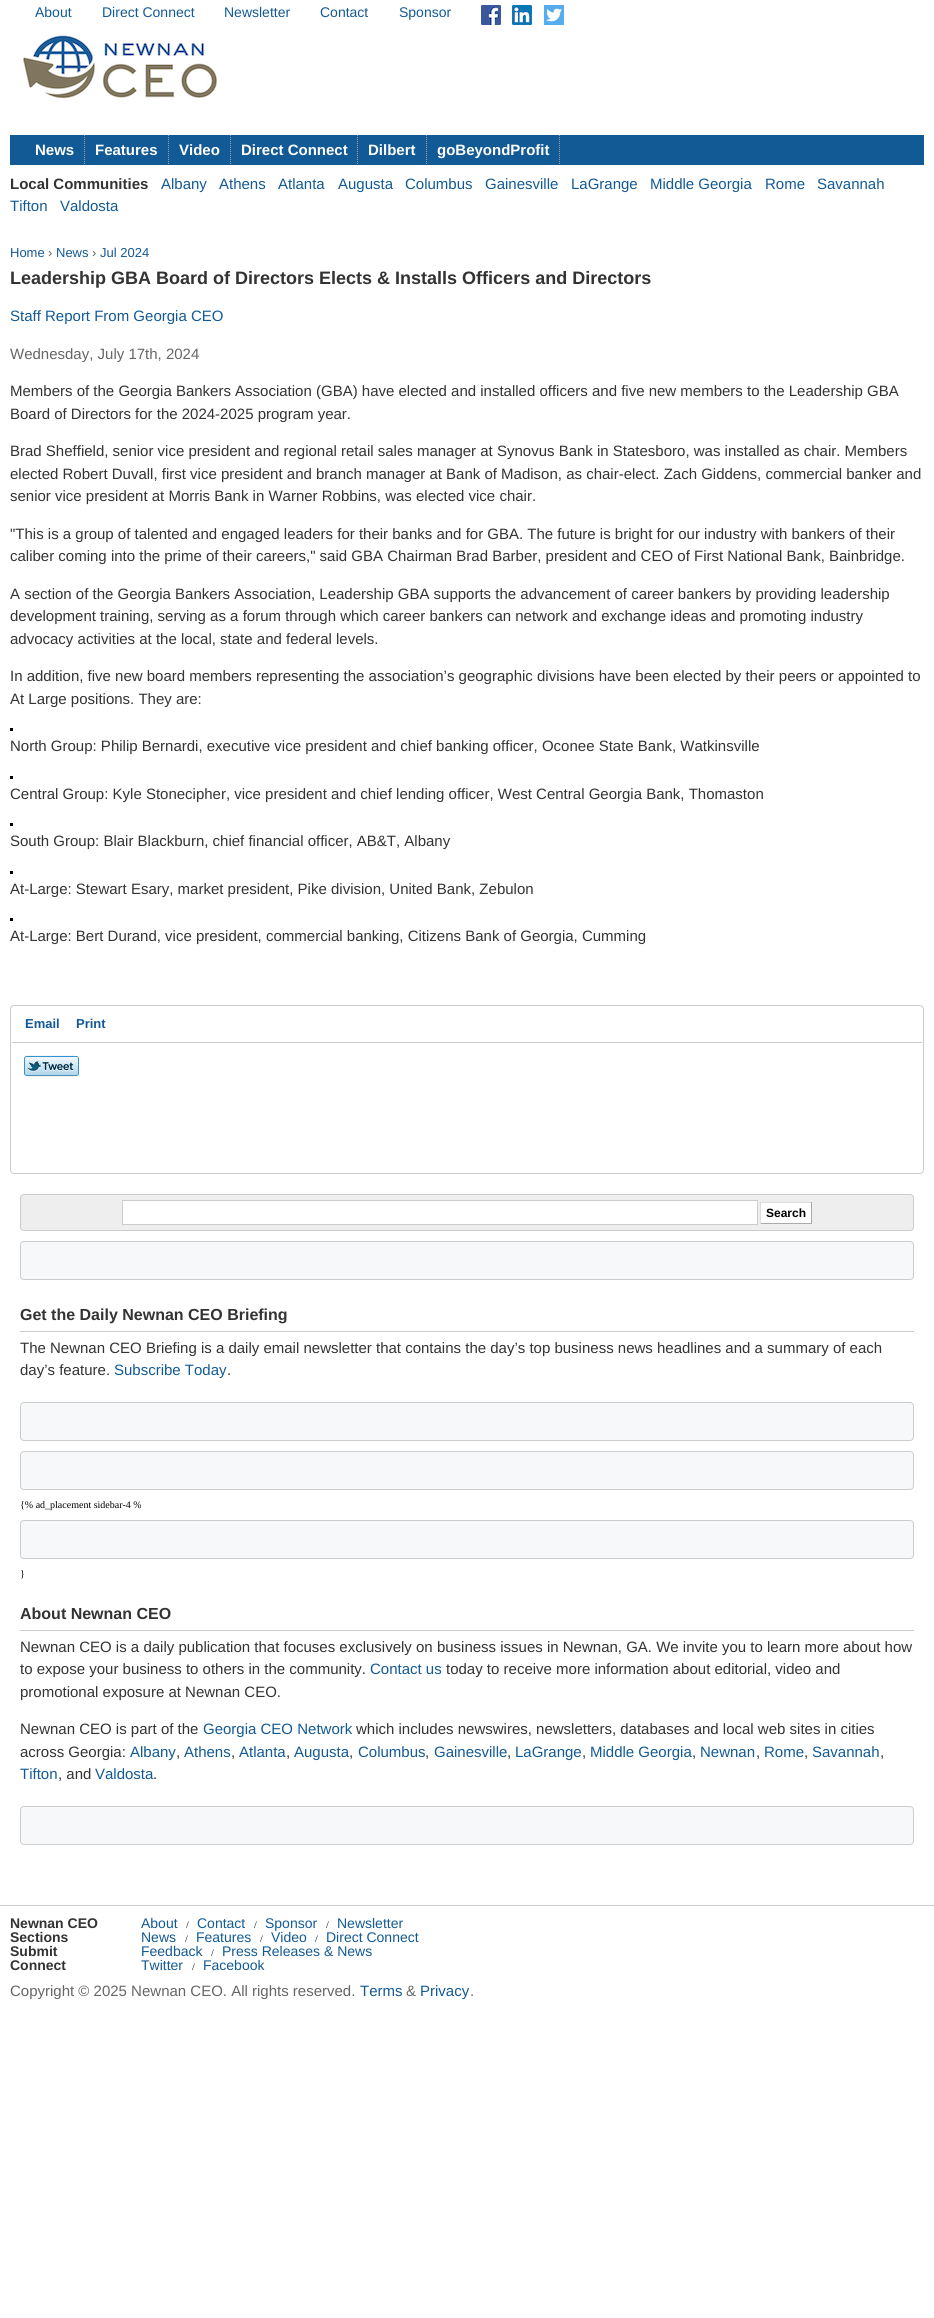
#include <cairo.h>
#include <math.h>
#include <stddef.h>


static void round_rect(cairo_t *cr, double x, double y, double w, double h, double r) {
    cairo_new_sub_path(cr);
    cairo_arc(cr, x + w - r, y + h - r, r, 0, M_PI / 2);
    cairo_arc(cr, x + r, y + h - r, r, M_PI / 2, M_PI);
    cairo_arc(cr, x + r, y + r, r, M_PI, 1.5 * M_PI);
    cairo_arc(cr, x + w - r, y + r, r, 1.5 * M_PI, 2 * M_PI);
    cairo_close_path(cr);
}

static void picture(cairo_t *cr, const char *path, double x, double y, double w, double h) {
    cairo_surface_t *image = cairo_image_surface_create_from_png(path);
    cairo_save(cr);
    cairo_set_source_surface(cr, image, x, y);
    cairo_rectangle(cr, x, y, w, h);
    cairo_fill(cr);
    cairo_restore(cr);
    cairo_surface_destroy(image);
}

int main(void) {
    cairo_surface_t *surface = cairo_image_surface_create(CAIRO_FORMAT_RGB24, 934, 2318);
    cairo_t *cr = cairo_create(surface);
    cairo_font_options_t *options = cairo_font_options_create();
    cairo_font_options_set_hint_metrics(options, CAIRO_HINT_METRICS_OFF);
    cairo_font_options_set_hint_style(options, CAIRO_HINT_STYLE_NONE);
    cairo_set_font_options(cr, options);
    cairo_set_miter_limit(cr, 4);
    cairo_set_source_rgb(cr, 1, 1, 1);
    cairo_paint(cr);
    cairo_select_font_face(cr, "Liberation Sans", CAIRO_FONT_SLANT_NORMAL, CAIRO_FONT_WEIGHT_NORMAL);
    cairo_set_font_size(cr, 14);
    cairo_set_source_rgb(cr, 0.071, 0.353, 0.584);
    cairo_move_to(cr, 35, 17);
    cairo_show_text(cr, "About");
    cairo_move_to(cr, 102, 17);
    cairo_show_text(cr, "Direct Connect");
    cairo_move_to(cr, 224, 17);
    cairo_show_text(cr, "Newsletter");
    cairo_move_to(cr, 320, 17);
    cairo_show_text(cr, "Contact");
    cairo_move_to(cr, 399, 17);
    cairo_show_text(cr, "Sponsor");
    picture(cr, "img1.png", 481, 5, 20, 20);
    picture(cr, "img2.png", 512, 5, 20, 20);
    picture(cr, "img3.png", 544, 5, 20, 20);
    picture(cr, "img4.png", 22, 33, 195, 67);
    cairo_rectangle(cr, 10, 135, 914, 30);
    cairo_fill(cr);
    cairo_new_path(cr);
    cairo_move_to(cr, 84.5, 135);
    cairo_line_to(cr, 84.5, 165);
    cairo_set_source_rgb(cr, 0.631, 0.631, 0.631);
    cairo_set_line_width(cr, 1);
    cairo_set_dash(cr, (double[]){1, 1}, 2, 0);
    cairo_stroke(cr);
    cairo_select_font_face(cr, "Liberation Sans", CAIRO_FONT_SLANT_NORMAL, CAIRO_FONT_WEIGHT_BOLD);
    cairo_set_font_size(cr, 15);
    cairo_set_source_rgb(cr, 1, 1, 1);
    cairo_move_to(cr, 35, 155);
    cairo_show_text(cr, "News");
    cairo_new_path(cr);
    cairo_move_to(cr, 168.5, 135);
    cairo_line_to(cr, 168.5, 165);
    cairo_set_source_rgb(cr, 0.631, 0.631, 0.631);
    cairo_stroke(cr);
    cairo_set_source_rgb(cr, 1, 1, 1);
    cairo_move_to(cr, 95, 155);
    cairo_show_text(cr, "Features");
    cairo_new_path(cr);
    cairo_move_to(cr, 230.5, 135);
    cairo_line_to(cr, 230.5, 165);
    cairo_set_source_rgb(cr, 0.631, 0.631, 0.631);
    cairo_stroke(cr);
    cairo_set_source_rgb(cr, 1, 1, 1);
    cairo_move_to(cr, 179, 155);
    cairo_show_text(cr, "Video");
    cairo_new_path(cr);
    cairo_move_to(cr, 357.5, 135);
    cairo_line_to(cr, 357.5, 165);
    cairo_set_source_rgb(cr, 0.631, 0.631, 0.631);
    cairo_stroke(cr);
    cairo_set_source_rgb(cr, 1, 1, 1);
    cairo_move_to(cr, 241, 155);
    cairo_show_text(cr, "Direct Connect");
    cairo_new_path(cr);
    cairo_move_to(cr, 426.5, 135);
    cairo_line_to(cr, 426.5, 165);
    cairo_set_source_rgb(cr, 0.631, 0.631, 0.631);
    cairo_stroke(cr);
    cairo_set_source_rgb(cr, 1, 1, 1);
    cairo_move_to(cr, 368, 155);
    cairo_show_text(cr, "Dilbert");
    cairo_new_path(cr);
    cairo_move_to(cr, 559.5, 135);
    cairo_line_to(cr, 559.5, 165);
    cairo_set_source_rgb(cr, 0.631, 0.631, 0.631);
    cairo_stroke(cr);
    cairo_set_source_rgb(cr, 1, 1, 1);
    cairo_move_to(cr, 437, 155);
    cairo_show_text(cr, "goBeyondProfit");
    cairo_set_source_rgb(cr, 0.2, 0.2, 0.2);
    cairo_move_to(cr, 10, 189);
    cairo_show_text(cr, "Local Communities");
    cairo_select_font_face(cr, "Liberation Sans", CAIRO_FONT_SLANT_NORMAL, CAIRO_FONT_WEIGHT_NORMAL);
    cairo_set_source_rgb(cr, 0.071, 0.353, 0.584);
    cairo_move_to(cr, 161, 189);
    cairo_show_text(cr, "Albany");
    cairo_move_to(cr, 219, 189);
    cairo_show_text(cr, "Athens");
    cairo_move_to(cr, 278, 189);
    cairo_show_text(cr, "Atlanta");
    cairo_move_to(cr, 338, 189);
    cairo_show_text(cr, "Augusta");
    cairo_move_to(cr, 405, 189);
    cairo_show_text(cr, "Columbus");
    cairo_move_to(cr, 485, 189);
    cairo_show_text(cr, "Gainesville");
    cairo_move_to(cr, 571, 189);
    cairo_show_text(cr, "LaGrange");
    cairo_move_to(cr, 650, 189);
    cairo_show_text(cr, "Middle Georgia");
    cairo_move_to(cr, 765, 189);
    cairo_show_text(cr, "Rome");
    cairo_move_to(cr, 817, 189);
    cairo_show_text(cr, "Savannah");
    cairo_move_to(cr, 10, 211);
    cairo_show_text(cr, "Tifton");
    cairo_move_to(cr, 60, 211);
    cairo_show_text(cr, "Valdosta");
    cairo_set_font_size(cr, 13);
    cairo_move_to(cr, 10, 257);
    cairo_show_text(cr, "Home");
    cairo_set_source_rgb(cr, 0.4, 0.4, 0.4);
    cairo_move_to(cr, 48, 257);
    cairo_show_text(cr, "›");
    cairo_set_source_rgb(cr, 0.071, 0.353, 0.584);
    cairo_move_to(cr, 56, 257);
    cairo_show_text(cr, "News");
    cairo_set_source_rgb(cr, 0.4, 0.4, 0.4);
    cairo_move_to(cr, 92, 257);
    cairo_show_text(cr, "›");
    cairo_set_source_rgb(cr, 0.071, 0.353, 0.584);
    cairo_move_to(cr, 100, 257);
    cairo_show_text(cr, "Jul 2024");
    cairo_select_font_face(cr, "Liberation Sans", CAIRO_FONT_SLANT_NORMAL, CAIRO_FONT_WEIGHT_BOLD);
    cairo_set_font_size(cr, 18);
    cairo_set_source_rgb(cr, 0.2, 0.2, 0.2);
    cairo_move_to(cr, 10, 284);
    cairo_show_text(cr, "Leadership GBA Board of Directors Elects & Installs Officers and Directors");
    cairo_select_font_face(cr, "Liberation Sans", CAIRO_FONT_SLANT_NORMAL, CAIRO_FONT_WEIGHT_NORMAL);
    cairo_set_font_size(cr, 15);
    cairo_set_source_rgb(cr, 0.071, 0.353, 0.584);
    cairo_move_to(cr, 10, 321);
    cairo_show_text(cr, "Staff Report From Georgia CEO");
    cairo_set_source_rgb(cr, 0.4, 0.4, 0.4);
    cairo_move_to(cr, 10, 359);
    cairo_show_text(cr, "Wednesday, July 17th, 2024");
    cairo_set_source_rgb(cr, 0.2, 0.2, 0.2);
    cairo_move_to(cr, 10, 396);
    cairo_show_text(cr, "Members of the Georgia Bankers Association (GBA) have elected and installed officers and five new members to the Leadership GBA");
    cairo_move_to(cr, 10, 419);
    cairo_show_text(cr, "Board of Directors for the 2024-2025 program year.");
    cairo_move_to(cr, 10, 456);
    cairo_show_text(cr, "Brad Sheffield, senior vice president and regional retail sales manager at Synovus Bank in Statesboro, was installed as chair. Members");
    cairo_move_to(cr, 10, 479);
    cairo_show_text(cr, "elected Robert Duvall, first vice president and branch manager at Bank of Madison, as chair-elect. Zach Giddens, commercial banker and");
    cairo_move_to(cr, 10, 501);
    cairo_show_text(cr, "senior vice president at Morris Bank in Warner Robbins, was elected vice chair.");
    cairo_move_to(cr, 10, 539);
    cairo_show_text(cr, "\"This is a group of talented and engaged leaders for their banks and for GBA. The future is bright for our industry with bankers of their");
    cairo_move_to(cr, 10, 561);
    cairo_show_text(cr, "caliber coming into the prime of their careers,\" said GBA Chairman Brad Barber, president and CEO of First National Bank, Bainbridge.");
    cairo_move_to(cr, 10, 599);
    cairo_show_text(cr, "A section of the Georgia Bankers Association, Leadership GBA supports the advancement of career bankers by providing leadership");
    cairo_move_to(cr, 10, 621);
    cairo_show_text(cr, "development training, serving as a forum through which career bankers can network and exchange ideas and promoting industry");
    cairo_move_to(cr, 10, 644);
    cairo_show_text(cr, "advocacy activities at the local, state and federal levels.");
    cairo_move_to(cr, 10, 681);
    cairo_show_text(cr, "In addition, five new board members representing the association’s geographic divisions have been elected by their peers or appointed to");
    cairo_move_to(cr, 10, 704);
    cairo_show_text(cr, "At Large positions. They are:");
    cairo_set_source_rgb(cr, 0, 0, 0);
    cairo_rectangle(cr, 10, 728, 3, 3);
    cairo_fill(cr);
    cairo_set_source_rgb(cr, 0.2, 0.2, 0.2);
    cairo_move_to(cr, 10, 751);
    cairo_show_text(cr, "North Group: Philip Bernardi, executive vice president and chief banking officer, Oconee State Bank, Watkinsville");
    cairo_set_source_rgb(cr, 0, 0, 0);
    cairo_rectangle(cr, 10, 776, 3, 3);
    cairo_fill(cr);
    cairo_set_source_rgb(cr, 0.2, 0.2, 0.2);
    cairo_move_to(cr, 10, 799);
    cairo_show_text(cr, "Central Group: Kyle Stonecipher, vice president and chief lending officer, West Central Georgia Bank, Thomaston");
    cairo_set_source_rgb(cr, 0, 0, 0);
    cairo_rectangle(cr, 10, 823, 3, 3);
    cairo_fill(cr);
    cairo_set_source_rgb(cr, 0.2, 0.2, 0.2);
    cairo_move_to(cr, 10, 846);
    cairo_show_text(cr, "South Group: Blair Blackburn, chief financial officer, AB&T, Albany");
    cairo_set_source_rgb(cr, 0, 0, 0);
    cairo_rectangle(cr, 10, 871, 3, 3);
    cairo_fill(cr);
    cairo_set_source_rgb(cr, 0.2, 0.2, 0.2);
    cairo_move_to(cr, 10, 894);
    cairo_show_text(cr, "At-Large: Stewart Esary, market president, Pike division, United Bank, Zebulon");
    cairo_set_source_rgb(cr, 0, 0, 0);
    cairo_rectangle(cr, 10, 918, 3, 3);
    cairo_fill(cr);
    cairo_set_source_rgb(cr, 0.2, 0.2, 0.2);
    cairo_move_to(cr, 10, 941);
    cairo_show_text(cr, "At-Large: Bert Durand, vice president, commercial banking, Citizens Bank of Georgia, Cumming");
    round_rect(cr, 10.5, 1005.5, 913, 168, 3.5);
    cairo_set_source_rgb(cr, 0.8, 0.8, 0.8);
    cairo_set_dash(cr, NULL, 0, 0);
    cairo_stroke(cr);
    cairo_select_font_face(cr, "Liberation Sans", CAIRO_FONT_SLANT_NORMAL, CAIRO_FONT_WEIGHT_BOLD);
    cairo_set_font_size(cr, 13);
    cairo_set_source_rgb(cr, 0.071, 0.353, 0.584);
    cairo_move_to(cr, 25, 1028);
    cairo_show_text(cr, "Email");
    cairo_move_to(cr, 76, 1028);
    cairo_show_text(cr, "Print");
    cairo_set_source_rgb(cr, 0.8, 0.8, 0.8);
    cairo_rectangle(cr, 12, 1042, 910, 1);
    cairo_fill(cr);
    picture(cr, "img5.png", 24, 1055, 55, 22);
    cairo_set_source_rgb(cr, 0.933, 0.933, 0.933);
    round_rect(cr, 20.5, 1194.5, 893, 36, 3.5);
    cairo_fill_preserve(cr);
    cairo_set_source_rgb(cr, 0.8, 0.8, 0.8);
    cairo_stroke(cr);
    cairo_set_source_rgb(cr, 1, 1, 1);
    cairo_rectangle(cr, 122.5, 1200.5, 635, 24);
    cairo_fill_preserve(cr);
    cairo_set_source_rgb(cr, 0.8, 0.8, 0.8);
    cairo_stroke(cr);
    cairo_set_source_rgb(cr, 1, 1, 1);
    cairo_rectangle(cr, 761, 1203, 50, 20);
    cairo_fill(cr);
    cairo_set_source_rgb(cr, 0.867, 0.867, 0.867);
    cairo_rectangle(cr, 760, 1202, 52, 1);
    cairo_fill(cr);
    cairo_set_source_rgb(cr, 0.667, 0.667, 0.667);
    cairo_rectangle(cr, 811, 1202, 1, 22);
    cairo_fill(cr);
    cairo_rectangle(cr, 760, 1223, 52, 1);
    cairo_fill(cr);
    cairo_set_source_rgb(cr, 0.867, 0.867, 0.867);
    cairo_rectangle(cr, 760, 1202, 1, 22);
    cairo_fill(cr);
    cairo_set_font_size(cr, 12);
    cairo_set_source_rgb(cr, 0, 0, 0);
    cairo_move_to(cr, 766, 1217);
    cairo_show_text(cr, "Search");
    cairo_set_source_rgb(cr, 0.961, 0.969, 0.976);
    round_rect(cr, 20.5, 1241.5, 893, 38, 3.5);
    cairo_fill_preserve(cr);
    cairo_set_source_rgb(cr, 0.8, 0.8, 0.8);
    cairo_stroke(cr);
    cairo_rectangle(cr, 20, 1331, 894, 1);
    cairo_fill(cr);
    cairo_set_font_size(cr, 16);
    cairo_set_source_rgb(cr, 0.2, 0.2, 0.2);
    cairo_move_to(cr, 20, 1320);
    cairo_show_text(cr, "Get the Daily Newnan CEO Briefing");
    cairo_select_font_face(cr, "Liberation Sans", CAIRO_FONT_SLANT_NORMAL, CAIRO_FONT_WEIGHT_NORMAL);
    cairo_set_font_size(cr, 15);
    cairo_move_to(cr, 20, 1353);
    cairo_show_text(cr, "The Newnan CEO Briefing is a daily email newsletter that contains the day’s top business news headlines and a summary of each");
    cairo_move_to(cr, 20, 1375);
    cairo_show_text(cr, "day’s feature.");
    cairo_set_source_rgb(cr, 0.071, 0.353, 0.584);
    cairo_move_to(cr, 114, 1375);
    cairo_show_text(cr, "Subscribe Today");
    cairo_set_source_rgb(cr, 0.2, 0.2, 0.2);
    cairo_move_to(cr, 227, 1375);
    cairo_show_text(cr, ".");
    cairo_set_source_rgb(cr, 0.961, 0.969, 0.976);
    round_rect(cr, 20.5, 1402.5, 893, 38, 3.5);
    cairo_fill_preserve(cr);
    cairo_set_source_rgb(cr, 0.8, 0.8, 0.8);
    cairo_stroke(cr);
    cairo_set_source_rgb(cr, 0.961, 0.969, 0.976);
    round_rect(cr, 20.5, 1451.5, 893, 38, 3.5);
    cairo_fill_preserve(cr);
    cairo_set_source_rgb(cr, 0.8, 0.8, 0.8);
    cairo_stroke(cr);
    cairo_select_font_face(cr, "Liberation Serif", CAIRO_FONT_SLANT_NORMAL, CAIRO_FONT_WEIGHT_NORMAL);
    cairo_set_font_size(cr, 10);
    cairo_set_source_rgb(cr, 0, 0, 0);
    cairo_move_to(cr, 20, 1508);
    cairo_show_text(cr, "{% ad_placement sidebar-4 %");
    cairo_set_source_rgb(cr, 0.961, 0.969, 0.976);
    round_rect(cr, 20.5, 1520.5, 893, 38, 3.5);
    cairo_fill_preserve(cr);
    cairo_set_source_rgb(cr, 0.8, 0.8, 0.8);
    cairo_stroke(cr);
    cairo_set_source_rgb(cr, 0, 0, 0);
    cairo_move_to(cr, 20, 1577);
    cairo_show_text(cr, "}");
    cairo_set_source_rgb(cr, 0.8, 0.8, 0.8);
    cairo_rectangle(cr, 20, 1630, 894, 1);
    cairo_fill(cr);
    cairo_select_font_face(cr, "Liberation Sans", CAIRO_FONT_SLANT_NORMAL, CAIRO_FONT_WEIGHT_BOLD);
    cairo_set_font_size(cr, 16);
    cairo_set_source_rgb(cr, 0.2, 0.2, 0.2);
    cairo_move_to(cr, 20, 1619);
    cairo_show_text(cr, "About Newnan CEO");
    cairo_select_font_face(cr, "Liberation Sans", CAIRO_FONT_SLANT_NORMAL, CAIRO_FONT_WEIGHT_NORMAL);
    cairo_set_font_size(cr, 15);
    cairo_move_to(cr, 20, 1652);
    cairo_show_text(cr, "Newnan CEO is a daily publication that focuses exclusively on business issues in Newnan, GA. We invite you to learn more about how");
    cairo_move_to(cr, 20, 1674);
    cairo_show_text(cr, "to expose your business to others in the community.");
    cairo_set_source_rgb(cr, 0.071, 0.353, 0.584);
    cairo_move_to(cr, 370, 1674);
    cairo_show_text(cr, "Contact us");
    cairo_set_source_rgb(cr, 0.2, 0.2, 0.2);
    cairo_move_to(cr, 446, 1674);
    cairo_show_text(cr, "today to receive more information about editorial, video and");
    cairo_move_to(cr, 20, 1697);
    cairo_show_text(cr, "promotional exposure at Newnan CEO.");
    cairo_move_to(cr, 20, 1734);
    cairo_show_text(cr, "Newnan CEO is part of the");
    cairo_set_source_rgb(cr, 0.071, 0.353, 0.584);
    cairo_move_to(cr, 203, 1734);
    cairo_show_text(cr, "Georgia CEO Network");
    cairo_set_source_rgb(cr, 0.2, 0.2, 0.2);
    cairo_move_to(cr, 356, 1734);
    cairo_show_text(cr, "which includes newswires, newsletters, databases and local web sites in cities");
    cairo_move_to(cr, 20, 1757);
    cairo_show_text(cr, "across Georgia:");
    cairo_set_source_rgb(cr, 0.071, 0.353, 0.584);
    cairo_move_to(cr, 130, 1757);
    cairo_show_text(cr, "Albany");
    cairo_set_source_rgb(cr, 0.2, 0.2, 0.2);
    cairo_move_to(cr, 176, 1757);
    cairo_show_text(cr, ",");
    cairo_set_source_rgb(cr, 0.071, 0.353, 0.584);
    cairo_move_to(cr, 184, 1757);
    cairo_show_text(cr, "Athens");
    cairo_set_source_rgb(cr, 0.2, 0.2, 0.2);
    cairo_move_to(cr, 231, 1757);
    cairo_show_text(cr, ",");
    cairo_set_source_rgb(cr, 0.071, 0.353, 0.584);
    cairo_move_to(cr, 239, 1757);
    cairo_show_text(cr, "Atlanta");
    cairo_set_source_rgb(cr, 0.2, 0.2, 0.2);
    cairo_move_to(cr, 286, 1757);
    cairo_show_text(cr, ",");
    cairo_set_source_rgb(cr, 0.071, 0.353, 0.584);
    cairo_move_to(cr, 294, 1757);
    cairo_show_text(cr, "Augusta");
    cairo_set_source_rgb(cr, 0.2, 0.2, 0.2);
    cairo_move_to(cr, 349, 1757);
    cairo_show_text(cr, ",");
    cairo_set_source_rgb(cr, 0.071, 0.353, 0.584);
    cairo_move_to(cr, 358, 1757);
    cairo_show_text(cr, "Columbus");
    cairo_set_source_rgb(cr, 0.2, 0.2, 0.2);
    cairo_move_to(cr, 425, 1757);
    cairo_show_text(cr, ",");
    cairo_set_source_rgb(cr, 0.071, 0.353, 0.584);
    cairo_move_to(cr, 434, 1757);
    cairo_show_text(cr, "Gainesville");
    cairo_set_source_rgb(cr, 0.2, 0.2, 0.2);
    cairo_move_to(cr, 507, 1757);
    cairo_show_text(cr, ",");
    cairo_set_source_rgb(cr, 0.071, 0.353, 0.584);
    cairo_move_to(cr, 515, 1757);
    cairo_show_text(cr, "LaGrange");
    cairo_set_source_rgb(cr, 0.2, 0.2, 0.2);
    cairo_move_to(cr, 582, 1757);
    cairo_show_text(cr, ",");
    cairo_set_source_rgb(cr, 0.071, 0.353, 0.584);
    cairo_move_to(cr, 590, 1757);
    cairo_show_text(cr, "Middle Georgia");
    cairo_set_source_rgb(cr, 0.2, 0.2, 0.2);
    cairo_move_to(cr, 692, 1757);
    cairo_show_text(cr, ",");
    cairo_set_source_rgb(cr, 0.071, 0.353, 0.584);
    cairo_move_to(cr, 700, 1757);
    cairo_show_text(cr, "Newnan");
    cairo_set_source_rgb(cr, 0.2, 0.2, 0.2);
    cairo_move_to(cr, 756, 1757);
    cairo_show_text(cr, ",");
    cairo_set_source_rgb(cr, 0.071, 0.353, 0.584);
    cairo_move_to(cr, 764, 1757);
    cairo_show_text(cr, "Rome");
    cairo_set_source_rgb(cr, 0.2, 0.2, 0.2);
    cairo_move_to(cr, 804, 1757);
    cairo_show_text(cr, ",");
    cairo_set_source_rgb(cr, 0.071, 0.353, 0.584);
    cairo_move_to(cr, 812, 1757);
    cairo_show_text(cr, "Savannah");
    cairo_set_source_rgb(cr, 0.2, 0.2, 0.2);
    cairo_move_to(cr, 880, 1757);
    cairo_show_text(cr, ",");
    cairo_set_source_rgb(cr, 0.071, 0.353, 0.584);
    cairo_move_to(cr, 20, 1779);
    cairo_show_text(cr, "Tifton");
    cairo_set_source_rgb(cr, 0.2, 0.2, 0.2);
    cairo_move_to(cr, 58, 1779);
    cairo_show_text(cr, ", and");
    cairo_set_source_rgb(cr, 0.071, 0.353, 0.584);
    cairo_move_to(cr, 95, 1779);
    cairo_show_text(cr, "Valdosta");
    cairo_set_source_rgb(cr, 0.2, 0.2, 0.2);
    cairo_move_to(cr, 153, 1779);
    cairo_show_text(cr, ".");
    cairo_set_source_rgb(cr, 0.961, 0.969, 0.976);
    round_rect(cr, 20.5, 1806.5, 893, 38, 3.5);
    cairo_fill_preserve(cr);
    cairo_set_source_rgb(cr, 0.8, 0.8, 0.8);
    cairo_stroke(cr);
    cairo_rectangle(cr, 0, 1905, 934, 1);
    cairo_fill(cr);
    cairo_select_font_face(cr, "Liberation Sans", CAIRO_FONT_SLANT_NORMAL, CAIRO_FONT_WEIGHT_BOLD);
    cairo_set_font_size(cr, 14);
    cairo_set_source_rgb(cr, 0.2, 0.2, 0.2);
    cairo_move_to(cr, 10, 1928);
    cairo_show_text(cr, "Newnan CEO");
    cairo_select_font_face(cr, "Liberation Sans", CAIRO_FONT_SLANT_NORMAL, CAIRO_FONT_WEIGHT_NORMAL);
    cairo_set_source_rgb(cr, 0.071, 0.353, 0.584);
    cairo_move_to(cr, 141, 1928);
    cairo_show_text(cr, "About");
    cairo_select_font_face(cr, "Liberation Serif", CAIRO_FONT_SLANT_NORMAL, CAIRO_FONT_WEIGHT_NORMAL);
    cairo_set_font_size(cr, 10);
    cairo_set_source_rgb(cr, 0, 0, 0);
    cairo_move_to(cr, 186, 1928);
    cairo_show_text(cr, "/");
    cairo_select_font_face(cr, "Liberation Sans", CAIRO_FONT_SLANT_NORMAL, CAIRO_FONT_WEIGHT_NORMAL);
    cairo_set_font_size(cr, 14);
    cairo_set_source_rgb(cr, 0.071, 0.353, 0.584);
    cairo_move_to(cr, 197, 1928);
    cairo_show_text(cr, "Contact");
    cairo_select_font_face(cr, "Liberation Serif", CAIRO_FONT_SLANT_NORMAL, CAIRO_FONT_WEIGHT_NORMAL);
    cairo_set_font_size(cr, 10);
    cairo_set_source_rgb(cr, 0, 0, 0);
    cairo_move_to(cr, 254, 1928);
    cairo_show_text(cr, "/");
    cairo_select_font_face(cr, "Liberation Sans", CAIRO_FONT_SLANT_NORMAL, CAIRO_FONT_WEIGHT_NORMAL);
    cairo_set_font_size(cr, 14);
    cairo_set_source_rgb(cr, 0.071, 0.353, 0.584);
    cairo_move_to(cr, 265, 1928);
    cairo_show_text(cr, "Sponsor");
    cairo_select_font_face(cr, "Liberation Serif", CAIRO_FONT_SLANT_NORMAL, CAIRO_FONT_WEIGHT_NORMAL);
    cairo_set_font_size(cr, 10);
    cairo_set_source_rgb(cr, 0, 0, 0);
    cairo_move_to(cr, 326, 1928);
    cairo_show_text(cr, "/");
    cairo_select_font_face(cr, "Liberation Sans", CAIRO_FONT_SLANT_NORMAL, CAIRO_FONT_WEIGHT_NORMAL);
    cairo_set_font_size(cr, 14);
    cairo_set_source_rgb(cr, 0.071, 0.353, 0.584);
    cairo_move_to(cr, 337, 1928);
    cairo_show_text(cr, "Newsletter");
    cairo_select_font_face(cr, "Liberation Sans", CAIRO_FONT_SLANT_NORMAL, CAIRO_FONT_WEIGHT_BOLD);
    cairo_set_source_rgb(cr, 0.2, 0.2, 0.2);
    cairo_move_to(cr, 10, 1942);
    cairo_show_text(cr, "Sections");
    cairo_select_font_face(cr, "Liberation Sans", CAIRO_FONT_SLANT_NORMAL, CAIRO_FONT_WEIGHT_NORMAL);
    cairo_set_source_rgb(cr, 0.071, 0.353, 0.584);
    cairo_move_to(cr, 141, 1942);
    cairo_show_text(cr, "News");
    cairo_select_font_face(cr, "Liberation Serif", CAIRO_FONT_SLANT_NORMAL, CAIRO_FONT_WEIGHT_NORMAL);
    cairo_set_font_size(cr, 10);
    cairo_set_source_rgb(cr, 0, 0, 0);
    cairo_move_to(cr, 185, 1942);
    cairo_show_text(cr, "/");
    cairo_select_font_face(cr, "Liberation Sans", CAIRO_FONT_SLANT_NORMAL, CAIRO_FONT_WEIGHT_NORMAL);
    cairo_set_font_size(cr, 14);
    cairo_set_source_rgb(cr, 0.071, 0.353, 0.584);
    cairo_move_to(cr, 196, 1942);
    cairo_show_text(cr, "Features");
    cairo_select_font_face(cr, "Liberation Serif", CAIRO_FONT_SLANT_NORMAL, CAIRO_FONT_WEIGHT_NORMAL);
    cairo_set_font_size(cr, 10);
    cairo_set_source_rgb(cr, 0, 0, 0);
    cairo_move_to(cr, 260, 1942);
    cairo_show_text(cr, "/");
    cairo_select_font_face(cr, "Liberation Sans", CAIRO_FONT_SLANT_NORMAL, CAIRO_FONT_WEIGHT_NORMAL);
    cairo_set_font_size(cr, 14);
    cairo_set_source_rgb(cr, 0.071, 0.353, 0.584);
    cairo_move_to(cr, 271, 1942);
    cairo_show_text(cr, "Video");
    cairo_select_font_face(cr, "Liberation Serif", CAIRO_FONT_SLANT_NORMAL, CAIRO_FONT_WEIGHT_NORMAL);
    cairo_set_font_size(cr, 10);
    cairo_set_source_rgb(cr, 0, 0, 0);
    cairo_move_to(cr, 315, 1942);
    cairo_show_text(cr, "/");
    cairo_select_font_face(cr, "Liberation Sans", CAIRO_FONT_SLANT_NORMAL, CAIRO_FONT_WEIGHT_NORMAL);
    cairo_set_font_size(cr, 14);
    cairo_set_source_rgb(cr, 0.071, 0.353, 0.584);
    cairo_move_to(cr, 326, 1942);
    cairo_show_text(cr, "Direct Connect");
    cairo_select_font_face(cr, "Liberation Sans", CAIRO_FONT_SLANT_NORMAL, CAIRO_FONT_WEIGHT_BOLD);
    cairo_set_source_rgb(cr, 0.2, 0.2, 0.2);
    cairo_move_to(cr, 10, 1956);
    cairo_show_text(cr, "Submit");
    cairo_select_font_face(cr, "Liberation Sans", CAIRO_FONT_SLANT_NORMAL, CAIRO_FONT_WEIGHT_NORMAL);
    cairo_set_source_rgb(cr, 0.071, 0.353, 0.584);
    cairo_move_to(cr, 141, 1956);
    cairo_show_text(cr, "Feedback");
    cairo_select_font_face(cr, "Liberation Serif", CAIRO_FONT_SLANT_NORMAL, CAIRO_FONT_WEIGHT_NORMAL);
    cairo_set_font_size(cr, 10);
    cairo_set_source_rgb(cr, 0, 0, 0);
    cairo_move_to(cr, 211, 1956);
    cairo_show_text(cr, "/");
    cairo_select_font_face(cr, "Liberation Sans", CAIRO_FONT_SLANT_NORMAL, CAIRO_FONT_WEIGHT_NORMAL);
    cairo_set_font_size(cr, 14);
    cairo_set_source_rgb(cr, 0.071, 0.353, 0.584);
    cairo_move_to(cr, 222, 1956);
    cairo_show_text(cr, "Press Releases & News");
    cairo_select_font_face(cr, "Liberation Sans", CAIRO_FONT_SLANT_NORMAL, CAIRO_FONT_WEIGHT_BOLD);
    cairo_set_source_rgb(cr, 0.2, 0.2, 0.2);
    cairo_move_to(cr, 10, 1970);
    cairo_show_text(cr, "Connect");
    cairo_select_font_face(cr, "Liberation Sans", CAIRO_FONT_SLANT_NORMAL, CAIRO_FONT_WEIGHT_NORMAL);
    cairo_set_source_rgb(cr, 0.071, 0.353, 0.584);
    cairo_move_to(cr, 141, 1970);
    cairo_show_text(cr, "Twitter");
    cairo_select_font_face(cr, "Liberation Serif", CAIRO_FONT_SLANT_NORMAL, CAIRO_FONT_WEIGHT_NORMAL);
    cairo_set_font_size(cr, 10);
    cairo_set_source_rgb(cr, 0, 0, 0);
    cairo_move_to(cr, 192, 1970);
    cairo_show_text(cr, "/");
    cairo_select_font_face(cr, "Liberation Sans", CAIRO_FONT_SLANT_NORMAL, CAIRO_FONT_WEIGHT_NORMAL);
    cairo_set_font_size(cr, 14);
    cairo_set_source_rgb(cr, 0.071, 0.353, 0.584);
    cairo_move_to(cr, 203, 1970);
    cairo_show_text(cr, "Facebook");
    cairo_set_font_size(cr, 15);
    cairo_set_source_rgb(cr, 0.4, 0.4, 0.4);
    cairo_move_to(cr, 10, 1996);
    cairo_show_text(cr, "Copyright © 2025 Newnan CEO. All rights reserved.");
    cairo_set_source_rgb(cr, 0.071, 0.353, 0.584);
    cairo_move_to(cr, 360, 1996);
    cairo_show_text(cr, "Terms");
    cairo_set_source_rgb(cr, 0.4, 0.4, 0.4);
    cairo_move_to(cr, 406, 1996);
    cairo_show_text(cr, "&");
    cairo_set_source_rgb(cr, 0.071, 0.353, 0.584);
    cairo_move_to(cr, 420, 1996);
    cairo_show_text(cr, "Privacy");
    cairo_set_source_rgb(cr, 0.4, 0.4, 0.4);
    cairo_move_to(cr, 470, 1996);
    cairo_show_text(cr, ".");
    cairo_surface_write_to_png(surface, "page.png");
    cairo_font_options_destroy(options);
    cairo_destroy(cr);
    cairo_surface_destroy(surface);
    return 0;
}
